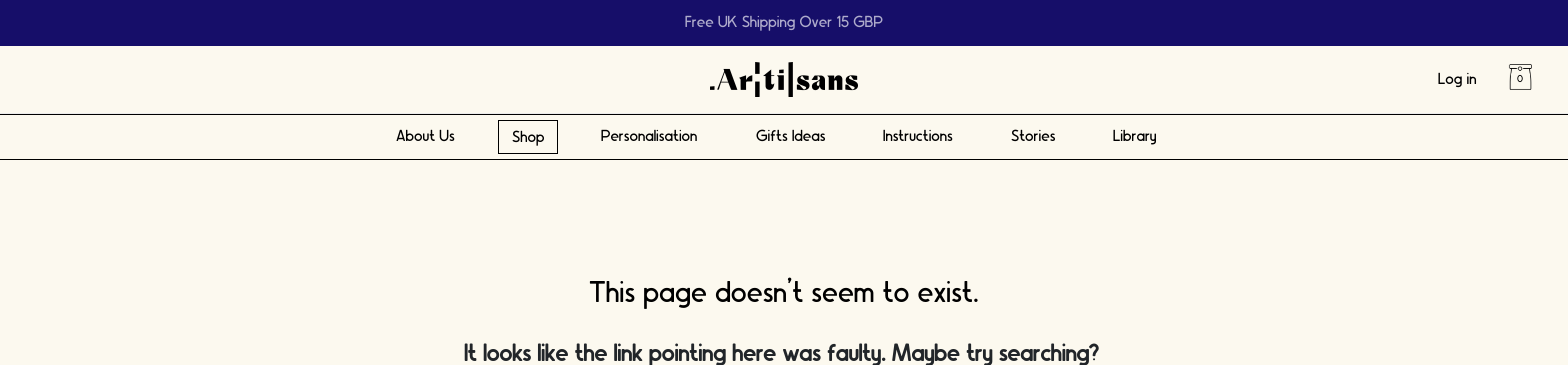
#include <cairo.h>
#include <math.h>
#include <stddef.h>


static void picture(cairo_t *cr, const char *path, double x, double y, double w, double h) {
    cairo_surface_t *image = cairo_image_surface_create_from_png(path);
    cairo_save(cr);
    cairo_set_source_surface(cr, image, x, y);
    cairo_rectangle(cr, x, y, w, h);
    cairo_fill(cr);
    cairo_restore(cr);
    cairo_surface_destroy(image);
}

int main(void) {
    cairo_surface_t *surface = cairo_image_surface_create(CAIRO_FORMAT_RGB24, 1568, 365);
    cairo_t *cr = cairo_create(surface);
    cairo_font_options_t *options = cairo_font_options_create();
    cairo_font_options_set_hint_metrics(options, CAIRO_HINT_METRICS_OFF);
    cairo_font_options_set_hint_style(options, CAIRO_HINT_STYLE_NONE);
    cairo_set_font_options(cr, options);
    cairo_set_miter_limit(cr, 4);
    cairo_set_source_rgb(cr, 0.988, 0.973, 0.937);
    cairo_paint(cr);
    cairo_set_source_rgb(cr, 0.086, 0.055, 0.412);
    cairo_rectangle(cr, 0, 0, 1568, 46);
    cairo_fill(cr);
    cairo_select_font_face(cr, "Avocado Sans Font", CAIRO_FONT_SLANT_NORMAL, CAIRO_FONT_WEIGHT_NORMAL);
    cairo_set_font_size(cr, 16);
    cairo_set_source_rgb(cr, 0.682, 0.671, 0.796);
    cairo_move_to(cr, 685, 27);
    cairo_show_text(cr, "Free UK Shipping Over 15 GBP");
    cairo_set_source_rgb(cr, 0.918, 0.918, 0.918);
    cairo_rectangle(cr, 0, 113, 1568, 1);
    cairo_fill(cr);
    picture(cr, "img1.png", 710, 62, 148, 35);
    cairo_set_source_rgb(cr, 0, 0, 0);
    cairo_move_to(cr, 1438, 84);
    cairo_show_text(cr, "Log in");
    picture(cr, "img2.png", 1508, 64, 24, 26);
    cairo_set_font_size(cr, 10);
    cairo_move_to(cr, 1517, 82);
    cairo_show_text(cr, "0");
    cairo_rectangle(cr, 0, 114, 1568, 1);
    cairo_fill(cr);
    cairo_rectangle(cr, 0, 159, 1568, 1);
    cairo_fill(cr);
    cairo_set_font_size(cr, 16);
    cairo_move_to(cr, 396, 141);
    cairo_show_text(cr, "About Us");
    cairo_rectangle(cr, 498.5, 120.5, 59, 33);
    cairo_set_line_width(cr, 1);
    cairo_stroke(cr);
    cairo_move_to(cr, 512, 142);
    cairo_show_text(cr, "Shop");
    cairo_move_to(cr, 601, 141);
    cairo_show_text(cr, "Personalisation");
    cairo_move_to(cr, 756, 141);
    cairo_show_text(cr, "Gifts Ideas");
    cairo_move_to(cr, 883, 141);
    cairo_show_text(cr, "Instructions");
    cairo_move_to(cr, 1011, 141);
    cairo_show_text(cr, "Stories");
    cairo_move_to(cr, 1113, 141);
    cairo_show_text(cr, "Library");
    cairo_set_font_size(cr, 30);
    cairo_move_to(cr, 589, 302);
    cairo_show_text(cr, "This page doesn't seem to exist.");
    cairo_select_font_face(cr, "Avocado Sans Font", CAIRO_FONT_SLANT_NORMAL, CAIRO_FONT_WEIGHT_BOLD);
    cairo_set_font_size(cr, 24);
    cairo_set_source_rgb(cr, 0.129, 0.145, 0.161);
    cairo_move_to(cr, 464, 361);
    cairo_show_text(cr, "It looks like the link pointing here was faulty. Maybe try searching?");
    cairo_surface_write_to_png(surface, "page.png");
    cairo_font_options_destroy(options);
    cairo_destroy(cr);
    cairo_surface_destroy(surface);
    return 0;
}
